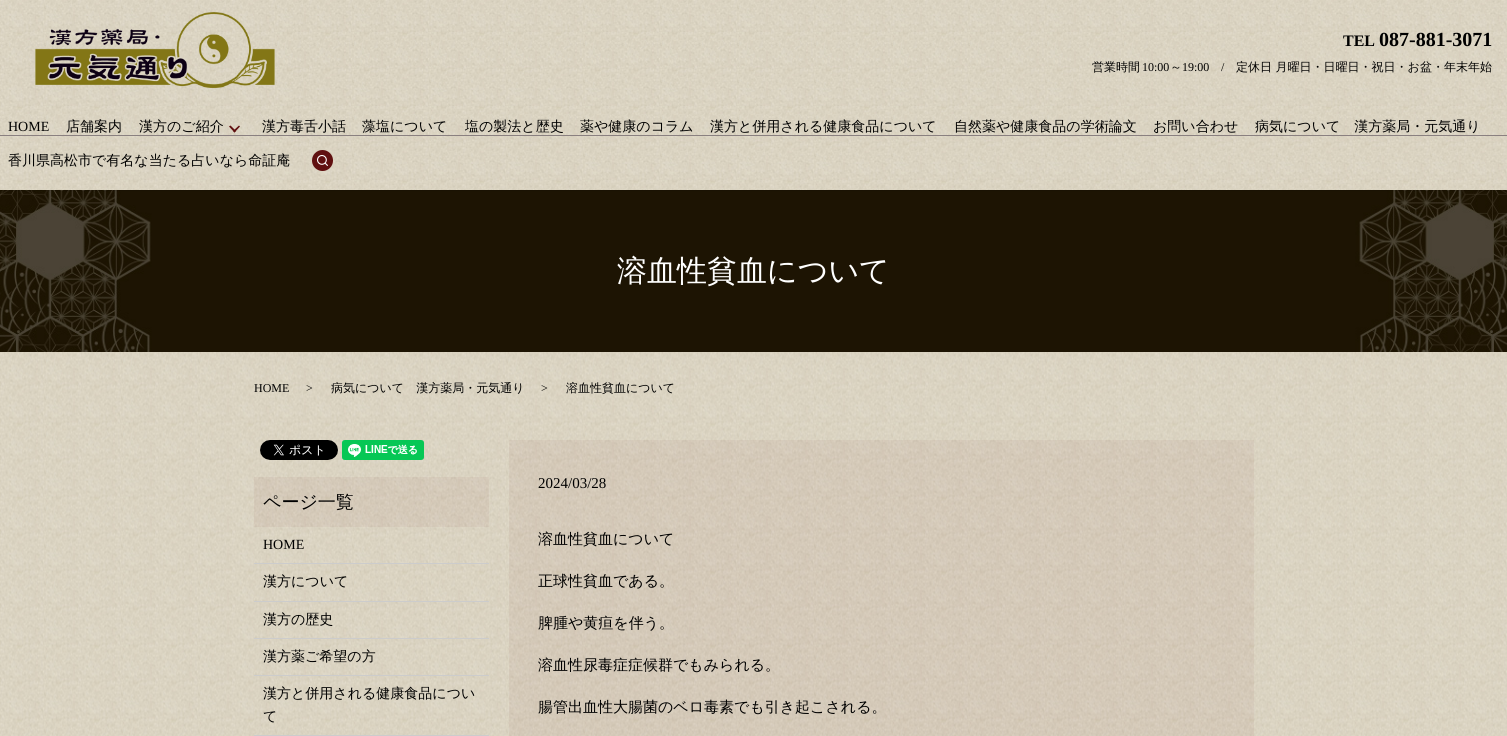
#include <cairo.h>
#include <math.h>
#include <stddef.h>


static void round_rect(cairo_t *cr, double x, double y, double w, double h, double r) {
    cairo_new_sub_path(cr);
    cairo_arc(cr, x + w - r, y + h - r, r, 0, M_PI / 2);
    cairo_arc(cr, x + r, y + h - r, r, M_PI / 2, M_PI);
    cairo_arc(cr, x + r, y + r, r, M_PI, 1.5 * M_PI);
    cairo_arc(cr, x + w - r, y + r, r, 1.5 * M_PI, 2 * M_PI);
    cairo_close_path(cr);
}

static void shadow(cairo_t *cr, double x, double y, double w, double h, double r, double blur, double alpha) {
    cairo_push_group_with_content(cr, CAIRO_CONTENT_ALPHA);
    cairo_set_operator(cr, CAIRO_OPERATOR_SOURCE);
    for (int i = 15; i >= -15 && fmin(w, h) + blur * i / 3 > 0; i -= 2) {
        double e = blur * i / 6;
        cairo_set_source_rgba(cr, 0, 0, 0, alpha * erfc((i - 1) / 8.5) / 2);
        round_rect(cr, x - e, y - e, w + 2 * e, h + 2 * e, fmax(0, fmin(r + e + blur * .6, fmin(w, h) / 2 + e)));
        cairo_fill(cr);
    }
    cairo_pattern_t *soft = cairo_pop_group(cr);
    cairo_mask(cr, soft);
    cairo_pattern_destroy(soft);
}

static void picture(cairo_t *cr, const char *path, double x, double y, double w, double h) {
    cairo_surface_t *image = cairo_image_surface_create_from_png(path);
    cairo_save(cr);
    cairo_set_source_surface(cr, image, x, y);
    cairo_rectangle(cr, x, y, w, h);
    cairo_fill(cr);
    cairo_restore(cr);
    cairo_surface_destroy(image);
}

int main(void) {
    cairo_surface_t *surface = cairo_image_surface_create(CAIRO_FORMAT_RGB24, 1507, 736);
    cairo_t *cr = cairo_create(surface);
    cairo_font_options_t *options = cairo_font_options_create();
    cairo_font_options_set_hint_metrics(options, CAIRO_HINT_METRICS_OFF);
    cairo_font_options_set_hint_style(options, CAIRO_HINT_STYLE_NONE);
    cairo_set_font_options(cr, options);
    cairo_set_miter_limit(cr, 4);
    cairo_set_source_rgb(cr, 1, 1, 1);
    cairo_paint(cr);
    picture(cr, "img1.png", 0, 352, 1507, 384);
    picture(cr, "img5.png", 0, 190, 1507, 162);
    cairo_set_source_rgb(cr, 0, 0, 0);
    shadow(cr, 0, 1, 1507, 190, 0, 0.5, 0.1);
    picture(cr, "img2.png", 0, 0, 1507, 190);
    picture(cr, "img3.png", 35, 12, 240, 77);
    cairo_select_font_face(cr, "Liberation Serif", CAIRO_FONT_SLANT_NORMAL, CAIRO_FONT_WEIGHT_BOLD);
    cairo_set_font_size(cr, 16);
    cairo_set_source_rgb(cr, 0, 0, 0);
    cairo_move_to(cr, 1343, 46);
    cairo_show_text(cr, "TEL");
    cairo_set_font_size(cr, 20);
    cairo_move_to(cr, 1379, 46);
    cairo_show_text(cr, "087-881-3071");
    cairo_select_font_face(cr, "WenQuanYi Zen Hei Medium", CAIRO_FONT_SLANT_NORMAL, CAIRO_FONT_WEIGHT_NORMAL);
    cairo_set_font_size(cr, 12);
    cairo_move_to(cr, 1092, 71);
    cairo_show_text(cr, "営業時間");
    cairo_select_font_face(cr, "Liberation Serif", CAIRO_FONT_SLANT_NORMAL, CAIRO_FONT_WEIGHT_NORMAL);
    cairo_move_to(cr, 1142, 71);
    cairo_show_text(cr, "10:00");
    cairo_select_font_face(cr, "WenQuanYi Zen Hei Medium", CAIRO_FONT_SLANT_NORMAL, CAIRO_FONT_WEIGHT_NORMAL);
    cairo_move_to(cr, 1170, 71);
    cairo_show_text(cr, "～");
    cairo_select_font_face(cr, "Liberation Serif", CAIRO_FONT_SLANT_NORMAL, CAIRO_FONT_WEIGHT_NORMAL);
    cairo_move_to(cr, 1182, 71);
    cairo_show_text(cr, "19:00");
    cairo_move_to(cr, 1221, 71);
    cairo_show_text(cr, "/");
    cairo_select_font_face(cr, "WenQuanYi Zen Hei Medium", CAIRO_FONT_SLANT_NORMAL, CAIRO_FONT_WEIGHT_NORMAL);
    cairo_move_to(cr, 1236, 71);
    cairo_show_text(cr, "定休日 月曜日・日曜日・祝日・お盆・年末年始");
    cairo_select_font_face(cr, "Liberation Serif", CAIRO_FONT_SLANT_NORMAL, CAIRO_FONT_WEIGHT_NORMAL);
    cairo_set_font_size(cr, 14);
    cairo_move_to(cr, 8, 131);
    cairo_show_text(cr, "HOME");
    cairo_select_font_face(cr, "WenQuanYi Zen Hei Medium", CAIRO_FONT_SLANT_NORMAL, CAIRO_FONT_WEIGHT_NORMAL);
    cairo_move_to(cr, 66, 131);
    cairo_show_text(cr, "店舗案内");
    cairo_move_to(cr, 139, 131);
    cairo_show_text(cr, "漢方のご紹介");
    cairo_set_source_rgb(cr, 0.376, 0.063, 0.063);
    cairo_new_path(cr);
    cairo_move_to(cr, 240, 126.5);
    cairo_line_to(cr, 234.5, 132.5);
    cairo_line_to(cr, 233, 131);
    cairo_line_to(cr, 239, 125.5);
    cairo_close_path(cr);
    cairo_fill(cr);
    cairo_new_path(cr);
    cairo_move_to(cr, 236, 131);
    cairo_line_to(cr, 234.5, 132.5);
    cairo_line_to(cr, 229, 126.5);
    cairo_line_to(cr, 230.5, 125.5);
    cairo_close_path(cr);
    cairo_fill(cr);
    cairo_set_source_rgb(cr, 0, 0, 0);
    cairo_move_to(cr, 262, 131);
    cairo_show_text(cr, "漢方毒舌小話");
    cairo_move_to(cr, 362, 131);
    cairo_show_text(cr, "藻塩について");
    cairo_move_to(cr, 465, 131);
    cairo_show_text(cr, "塩の製法と歴史");
    cairo_move_to(cr, 580, 131);
    cairo_show_text(cr, "薬や健康のコラム");
    cairo_move_to(cr, 710, 131);
    cairo_show_text(cr, "漢方と併用される健康食品について");
    cairo_move_to(cr, 954, 131);
    cairo_show_text(cr, "自然薬や健康食品の学術論文");
    cairo_move_to(cr, 1153, 131);
    cairo_show_text(cr, "お問い合わせ");
    cairo_move_to(cr, 1255, 131);
    cairo_show_text(cr, "病気について　漢方薬局・元気通り");
    cairo_move_to(cr, 8, 165);
    cairo_show_text(cr, "香川県高松市で有名な当たる占いなら命証庵");
    picture(cr, "img4.png", 312, 150, 21, 21);
    cairo_set_source_rgb(cr, 0.541, 0.502, 0.502);
    cairo_rectangle(cr, 0, 135, 1507, 1);
    cairo_fill(cr);
    cairo_set_font_size(cr, 30);
    cairo_set_source_rgb(cr, 1, 1, 1);
    cairo_move_to(cr, 617, 281);
    cairo_show_text(cr, "溶血性貧血について");
    cairo_select_font_face(cr, "Liberation Serif", CAIRO_FONT_SLANT_NORMAL, CAIRO_FONT_WEIGHT_NORMAL);
    cairo_set_font_size(cr, 12);
    cairo_set_source_rgb(cr, 0, 0, 0);
    cairo_move_to(cr, 254, 392);
    cairo_show_text(cr, "HOME");
    cairo_move_to(cr, 306, 392);
    cairo_show_text(cr, ">");
    cairo_select_font_face(cr, "WenQuanYi Zen Hei Medium", CAIRO_FONT_SLANT_NORMAL, CAIRO_FONT_WEIGHT_NORMAL);
    cairo_move_to(cr, 331, 392);
    cairo_show_text(cr, "病気について　漢方薬局・元気通り");
    cairo_select_font_face(cr, "Liberation Serif", CAIRO_FONT_SLANT_NORMAL, CAIRO_FONT_WEIGHT_NORMAL);
    cairo_move_to(cr, 541, 392);
    cairo_show_text(cr, ">");
    cairo_select_font_face(cr, "WenQuanYi Zen Hei Medium", CAIRO_FONT_SLANT_NORMAL, CAIRO_FONT_WEIGHT_NORMAL);
    cairo_move_to(cr, 566, 392);
    cairo_show_text(cr, "溶血性貧血について");
    picture(cr, "img6.png", 260, 440, 78, 20);
    picture(cr, "img7.png", 342, 440, 82, 20);
    cairo_set_source_rgba(cr, 0.376, 0.063, 0.063, 0.05);
    cairo_rectangle(cr, 254, 477, 235, 50);
    cairo_fill(cr);
    cairo_set_font_size(cr, 18);
    cairo_set_source_rgb(cr, 0, 0, 0);
    cairo_move_to(cr, 263, 508);
    cairo_show_text(cr, "ページ一覧");
    cairo_set_source_rgb(cr, 0.8, 0.8, 0.8);
    cairo_rectangle(cr, 254, 563, 235, 1);
    cairo_fill(cr);
    cairo_select_font_face(cr, "Liberation Serif", CAIRO_FONT_SLANT_NORMAL, CAIRO_FONT_WEIGHT_NORMAL);
    cairo_set_font_size(cr, 14);
    cairo_set_source_rgb(cr, 0, 0, 0);
    cairo_move_to(cr, 263, 549);
    cairo_show_text(cr, "HOME");
    cairo_set_source_rgb(cr, 0.8, 0.8, 0.8);
    cairo_rectangle(cr, 254, 601, 235, 1);
    cairo_fill(cr);
    cairo_select_font_face(cr, "WenQuanYi Zen Hei Medium", CAIRO_FONT_SLANT_NORMAL, CAIRO_FONT_WEIGHT_NORMAL);
    cairo_set_source_rgb(cr, 0, 0, 0);
    cairo_move_to(cr, 263, 586);
    cairo_show_text(cr, "漢方について");
    cairo_set_source_rgb(cr, 0.8, 0.8, 0.8);
    cairo_rectangle(cr, 254, 638, 235, 1);
    cairo_fill(cr);
    cairo_set_source_rgb(cr, 0, 0, 0);
    cairo_move_to(cr, 263, 624);
    cairo_show_text(cr, "漢方の歴史");
    cairo_set_source_rgb(cr, 0.8, 0.8, 0.8);
    cairo_rectangle(cr, 254, 675, 235, 1);
    cairo_fill(cr);
    cairo_set_source_rgb(cr, 0, 0, 0);
    cairo_move_to(cr, 263, 661);
    cairo_show_text(cr, "漢方薬ご希望の方");
    cairo_set_source_rgb(cr, 0.8, 0.8, 0.8);
    cairo_rectangle(cr, 254, 735, 235, 1);
    cairo_fill(cr);
    cairo_set_source_rgb(cr, 0, 0, 0);
    cairo_move_to(cr, 263, 698);
    cairo_show_text(cr, "漢方と併用される健康食品につい");
    cairo_move_to(cr, 263, 721);
    cairo_show_text(cr, "て");
    cairo_set_source_rgba(cr, 0.376, 0.063, 0.063, 0.05);
    cairo_rectangle(cr, 509, 440, 745, 296);
    cairo_fill(cr);
    cairo_select_font_face(cr, "Liberation Serif", CAIRO_FONT_SLANT_NORMAL, CAIRO_FONT_WEIGHT_NORMAL);
    cairo_set_font_size(cr, 15);
    cairo_set_source_rgb(cr, 0, 0, 0);
    cairo_move_to(cr, 538, 488);
    cairo_show_text(cr, "2024/03/28");
    cairo_select_font_face(cr, "WenQuanYi Zen Hei Medium", CAIRO_FONT_SLANT_NORMAL, CAIRO_FONT_WEIGHT_NORMAL);
    cairo_move_to(cr, 538, 544);
    cairo_show_text(cr, "溶血性貧血について");
    cairo_move_to(cr, 538, 586);
    cairo_show_text(cr, "正球性貧血である。");
    cairo_move_to(cr, 538, 628);
    cairo_show_text(cr, "脾腫や黄疸を伴う。");
    cairo_move_to(cr, 538, 670);
    cairo_show_text(cr, "溶血性尿毒症症候群でもみられる。");
    cairo_move_to(cr, 538, 712);
    cairo_show_text(cr, "腸管出血性大腸菌のベロ毒素でも引き起こされる。");
    cairo_surface_write_to_png(surface, "page.png");
    cairo_font_options_destroy(options);
    cairo_destroy(cr);
    cairo_surface_destroy(surface);
    return 0;
}
